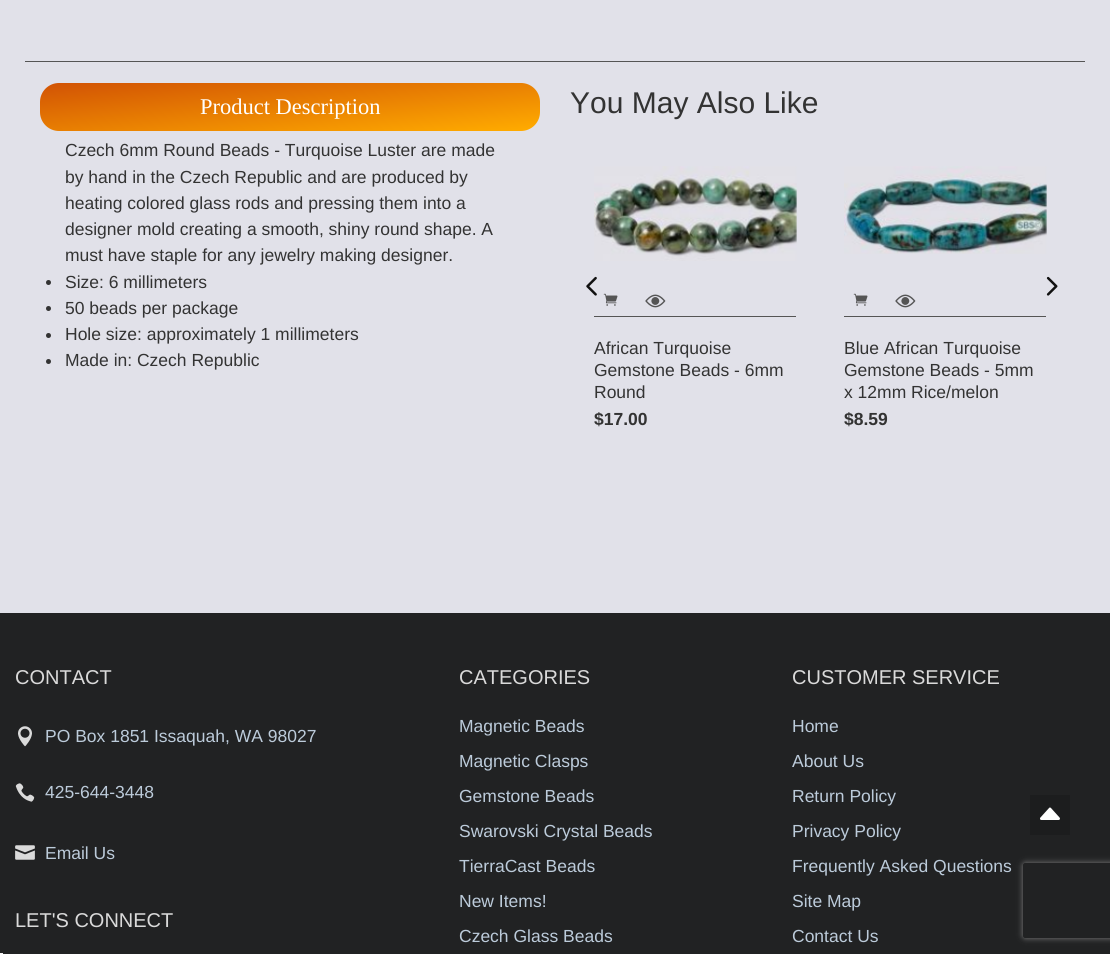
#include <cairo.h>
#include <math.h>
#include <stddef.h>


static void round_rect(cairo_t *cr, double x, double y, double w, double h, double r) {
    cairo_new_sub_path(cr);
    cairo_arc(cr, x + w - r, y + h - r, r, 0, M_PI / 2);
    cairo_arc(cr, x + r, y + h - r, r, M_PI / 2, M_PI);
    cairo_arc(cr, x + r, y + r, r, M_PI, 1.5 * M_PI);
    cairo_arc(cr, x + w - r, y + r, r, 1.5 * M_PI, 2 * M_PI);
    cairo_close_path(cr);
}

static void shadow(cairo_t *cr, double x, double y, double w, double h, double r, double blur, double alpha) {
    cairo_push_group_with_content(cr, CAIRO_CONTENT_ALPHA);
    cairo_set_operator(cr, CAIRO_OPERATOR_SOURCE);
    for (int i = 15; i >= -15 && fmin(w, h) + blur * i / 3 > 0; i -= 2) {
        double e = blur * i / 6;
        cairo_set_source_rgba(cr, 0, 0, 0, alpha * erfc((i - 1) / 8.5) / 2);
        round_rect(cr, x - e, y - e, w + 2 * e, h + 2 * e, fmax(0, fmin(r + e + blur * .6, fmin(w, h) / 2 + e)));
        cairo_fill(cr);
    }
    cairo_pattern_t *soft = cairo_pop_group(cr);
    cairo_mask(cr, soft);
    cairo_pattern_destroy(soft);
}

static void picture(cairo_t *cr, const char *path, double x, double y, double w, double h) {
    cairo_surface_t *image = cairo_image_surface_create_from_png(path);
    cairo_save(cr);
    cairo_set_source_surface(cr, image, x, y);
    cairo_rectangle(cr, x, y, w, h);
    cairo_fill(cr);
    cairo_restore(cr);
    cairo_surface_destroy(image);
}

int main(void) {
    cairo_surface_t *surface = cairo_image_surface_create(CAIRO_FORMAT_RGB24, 1110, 954);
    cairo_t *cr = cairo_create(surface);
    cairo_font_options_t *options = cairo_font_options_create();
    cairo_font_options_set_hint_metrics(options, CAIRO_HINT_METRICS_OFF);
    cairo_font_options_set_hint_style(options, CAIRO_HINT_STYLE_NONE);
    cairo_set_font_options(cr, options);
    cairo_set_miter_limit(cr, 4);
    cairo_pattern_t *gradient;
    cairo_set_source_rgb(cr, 0.882, 0.882, 0.914);
    cairo_paint(cr);
    cairo_set_source_rgb(cr, 0.333, 0.333, 0.333);
    cairo_rectangle(cr, 25, 61, 1060, 1);
    cairo_fill(cr);
    gradient = cairo_pattern_create_linear(285, 59, 295, 155);
    cairo_pattern_add_color_stop_rgba(gradient, 0, 0.824, 0.329, 0.016, 1);
    cairo_pattern_add_color_stop_rgba(gradient, 1, 1, 0.671, 0, 1);
    cairo_set_source(cr, gradient);
    cairo_pattern_destroy(gradient);
    round_rect(cr, 40, 83, 500, 48, 19);
    cairo_fill(cr);
    cairo_select_font_face(cr, "Liberation Serif", CAIRO_FONT_SLANT_NORMAL, CAIRO_FONT_WEIGHT_NORMAL);
    cairo_set_font_size(cr, 22.5);
    cairo_set_source_rgb(cr, 1, 1, 1);
    cairo_move_to(cr, 200, 114);
    cairo_show_text(cr, "Product Description");
    cairo_select_font_face(cr, "Liberation Sans", CAIRO_FONT_SLANT_NORMAL, CAIRO_FONT_WEIGHT_NORMAL);
    cairo_set_font_size(cr, 17.5);
    cairo_set_source_rgb(cr, 0.2, 0.2, 0.2);
    cairo_move_to(cr, 65, 156);
    cairo_show_text(cr, "Czech 6mm Round Beads - Turquoise Luster are made");
    cairo_move_to(cr, 65, 183);
    cairo_show_text(cr, "by hand in the Czech Republic and are produced by");
    cairo_move_to(cr, 65, 209);
    cairo_show_text(cr, "heating colored glass rods and pressing them into a");
    cairo_move_to(cr, 65, 235);
    cairo_show_text(cr, "designer mold creating a smooth, shiny round shape. A");
    cairo_move_to(cr, 65, 261);
    cairo_show_text(cr, "must have staple for any jewelry making designer.");
    cairo_new_path(cr);
    cairo_arc(cr, 48.5, 282.5, 2.5, 0, 2 * M_PI);
    cairo_fill(cr);
    cairo_move_to(cr, 65, 288);
    cairo_show_text(cr, "Size: 6 millimeters");
    cairo_new_path(cr);
    cairo_arc(cr, 48.5, 308.5, 2.5, 0, 2 * M_PI);
    cairo_fill(cr);
    cairo_move_to(cr, 65, 314);
    cairo_show_text(cr, "50 beads per package");
    cairo_new_path(cr);
    cairo_arc(cr, 48.5, 335.5, 2.5, 0, 2 * M_PI);
    cairo_fill(cr);
    cairo_move_to(cr, 65, 340);
    cairo_show_text(cr, "Hole size: approximately 1 millimeters");
    cairo_new_path(cr);
    cairo_arc(cr, 48.5, 361.5, 2.5, 0, 2 * M_PI);
    cairo_fill(cr);
    cairo_move_to(cr, 65, 366);
    cairo_show_text(cr, "Made in: Czech Republic");
    cairo_set_font_size(cr, 30);
    cairo_move_to(cr, 570, 113);
    cairo_show_text(cr, "You May Also Like");
    picture(cr, "img1.png", 586, 276, 11, 20);
    picture(cr, "img2.png", 1046, 276, 12, 20);
    picture(cr, "img3.png", 594, 166, 203, 95);
    cairo_set_source_rgb(cr, 0.333, 0.333, 0.333);
    cairo_rectangle(cr, 594, 316, 202, 1);
    cairo_fill(cr);
    picture(cr, "img4.png", 603, 293, 15, 13);
    picture(cr, "img5.png", 645, 294, 21, 14);
    cairo_set_font_size(cr, 17.5);
    cairo_set_source_rgb(cr, 0.2, 0.2, 0.2);
    cairo_move_to(cr, 594, 354);
    cairo_show_text(cr, "African Turquoise");
    cairo_move_to(cr, 594, 376);
    cairo_show_text(cr, "Gemstone Beads - 6mm");
    cairo_move_to(cr, 594, 398);
    cairo_show_text(cr, "Round");
    cairo_select_font_face(cr, "Liberation Sans", CAIRO_FONT_SLANT_NORMAL, CAIRO_FONT_WEIGHT_BOLD);
    cairo_move_to(cr, 594, 425);
    cairo_show_text(cr, "$17.00");
    picture(cr, "img6.png", 844, 166, 203, 88);
    cairo_set_source_rgb(cr, 0.333, 0.333, 0.333);
    cairo_rectangle(cr, 844, 316, 202, 1);
    cairo_fill(cr);
    picture(cr, "img4.png", 853, 293, 15, 13);
    picture(cr, "img5.png", 895, 294, 21, 14);
    cairo_select_font_face(cr, "Liberation Sans", CAIRO_FONT_SLANT_NORMAL, CAIRO_FONT_WEIGHT_NORMAL);
    cairo_set_source_rgb(cr, 0.2, 0.2, 0.2);
    cairo_move_to(cr, 844, 354);
    cairo_show_text(cr, "Blue African Turquoise");
    cairo_move_to(cr, 844, 376);
    cairo_show_text(cr, "Gemstone Beads - 5mm");
    cairo_move_to(cr, 844, 398);
    cairo_show_text(cr, "x 12mm Rice/melon");
    cairo_select_font_face(cr, "Liberation Sans", CAIRO_FONT_SLANT_NORMAL, CAIRO_FONT_WEIGHT_BOLD);
    cairo_move_to(cr, 844, 425);
    cairo_show_text(cr, "$8.59");
    cairo_set_source_rgb(cr, 0.129, 0.133, 0.137);
    cairo_rectangle(cr, 0, 613, 1110, 341);
    cairo_fill(cr);
    cairo_select_font_face(cr, "Liberation Sans", CAIRO_FONT_SLANT_NORMAL, CAIRO_FONT_WEIGHT_NORMAL);
    cairo_set_font_size(cr, 20);
    cairo_set_source_rgb(cr, 0.855, 0.855, 0.855);
    cairo_move_to(cr, 15, 684);
    cairo_show_text(cr, "CONTACT");
    picture(cr, "img7.png", 18, 726, 14, 21);
    cairo_set_font_size(cr, 17.5);
    cairo_set_source_rgb(cr, 0.737, 0.796, 0.855);
    cairo_move_to(cr, 45, 742);
    cairo_show_text(cr, "PO Box 1851 Issaquah, WA 98027");
    picture(cr, "img8.png", 15, 783, 20, 19);
    cairo_move_to(cr, 45, 798);
    cairo_show_text(cr, "425-644-3448");
    picture(cr, "img9.png", 15, 845, 20, 15);
    cairo_move_to(cr, 45, 859);
    cairo_show_text(cr, "Email Us");
    cairo_set_font_size(cr, 20);
    cairo_set_source_rgb(cr, 0.855, 0.855, 0.855);
    cairo_move_to(cr, 15, 927);
    cairo_show_text(cr, "LET'S CONNECT");
    cairo_move_to(cr, 459, 684);
    cairo_show_text(cr, "CATEGORIES");
    cairo_set_font_size(cr, 17.5);
    cairo_set_source_rgb(cr, 0.737, 0.796, 0.855);
    cairo_move_to(cr, 459, 732);
    cairo_show_text(cr, "Magnetic Beads");
    cairo_move_to(cr, 459, 767);
    cairo_show_text(cr, "Magnetic Clasps");
    cairo_move_to(cr, 459, 802);
    cairo_show_text(cr, "Gemstone Beads");
    cairo_move_to(cr, 459, 837);
    cairo_show_text(cr, "Swarovski Crystal Beads");
    cairo_move_to(cr, 459, 872);
    cairo_show_text(cr, "TierraCast Beads");
    cairo_move_to(cr, 459, 907);
    cairo_show_text(cr, "New Items!");
    cairo_move_to(cr, 459, 942);
    cairo_show_text(cr, "Czech Glass Beads");
    cairo_set_font_size(cr, 20);
    cairo_set_source_rgb(cr, 0.855, 0.855, 0.855);
    cairo_move_to(cr, 792, 684);
    cairo_show_text(cr, "CUSTOMER SERVICE");
    cairo_set_font_size(cr, 17.5);
    cairo_set_source_rgb(cr, 0.737, 0.796, 0.855);
    cairo_move_to(cr, 792, 732);
    cairo_show_text(cr, "Home");
    cairo_move_to(cr, 792, 767);
    cairo_show_text(cr, "About Us");
    cairo_move_to(cr, 792, 802);
    cairo_show_text(cr, "Return Policy");
    cairo_move_to(cr, 792, 837);
    cairo_show_text(cr, "Privacy Policy");
    cairo_move_to(cr, 792, 872);
    cairo_show_text(cr, "Frequently Asked Questions");
    cairo_move_to(cr, 792, 907);
    cairo_show_text(cr, "Site Map");
    cairo_move_to(cr, 792, 942);
    cairo_show_text(cr, "Contact Us");
    cairo_set_source_rgb(cr, 0.11, 0.114, 0.118);
    cairo_rectangle(cr, 1030, 795, 40, 40);
    cairo_fill(cr);
    picture(cr, "img10.png", 1040, 807, 20, 13);
    cairo_save(cr);
    cairo_set_fill_rule(cr, CAIRO_FILL_RULE_EVEN_ODD);
    cairo_new_path(cr);
    cairo_move_to(cr, 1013, 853);
    cairo_line_to(cr, 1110, 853);
    cairo_line_to(cr, 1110, 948);
    cairo_line_to(cr, 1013, 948);
    cairo_close_path(cr);
    cairo_move_to(cr, 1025.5, 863);
    cairo_line_to(cr, 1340.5, 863);
    cairo_curve_to(cr, 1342, 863, 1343, 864, 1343, 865.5);
    cairo_line_to(cr, 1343, 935.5);
    cairo_curve_to(cr, 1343, 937, 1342, 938, 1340.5, 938);
    cairo_line_to(cr, 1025.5, 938);
    cairo_curve_to(cr, 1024, 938, 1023, 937, 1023, 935.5);
    cairo_line_to(cr, 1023, 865.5);
    cairo_curve_to(cr, 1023, 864, 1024, 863, 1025.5, 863);
    cairo_close_path(cr);
    cairo_clip(cr);
    cairo_set_source_rgb(cr, 0.502, 0.502, 0.502);
    shadow(cr, 1023, 863, 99, 75, 2.5, 3, 1);
    cairo_restore(cr);
    cairo_set_source_rgb(cr, 0.961, 0.961, 0.961);
    cairo_rectangle(cr, 0, 953, 3, 1);
    cairo_fill(cr);
    cairo_surface_write_to_png(surface, "page.png");
    cairo_font_options_destroy(options);
    cairo_destroy(cr);
    cairo_surface_destroy(surface);
    return 0;
}
